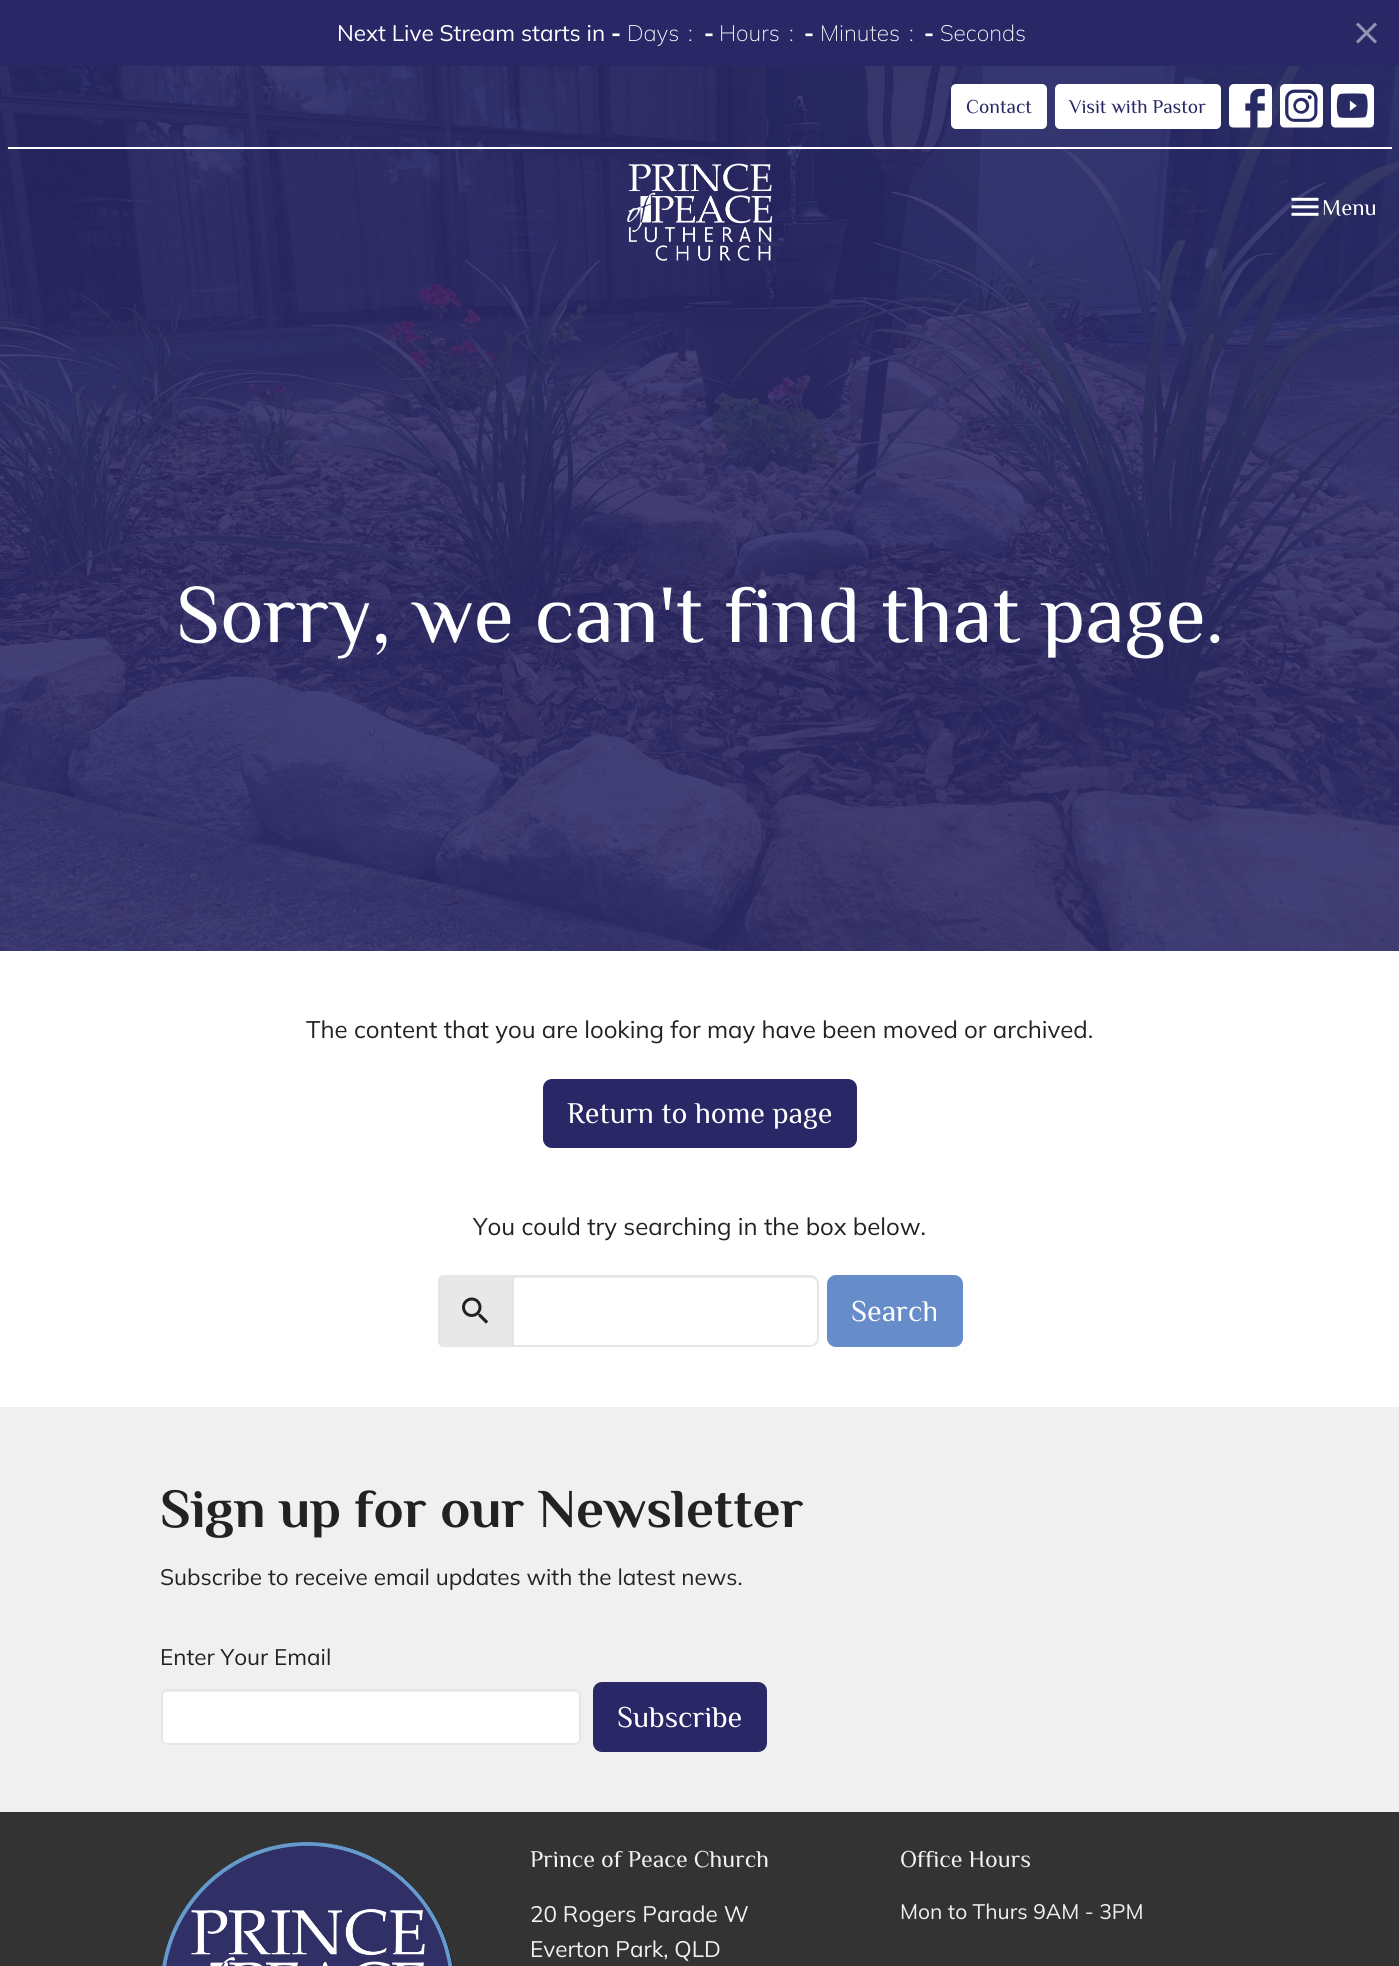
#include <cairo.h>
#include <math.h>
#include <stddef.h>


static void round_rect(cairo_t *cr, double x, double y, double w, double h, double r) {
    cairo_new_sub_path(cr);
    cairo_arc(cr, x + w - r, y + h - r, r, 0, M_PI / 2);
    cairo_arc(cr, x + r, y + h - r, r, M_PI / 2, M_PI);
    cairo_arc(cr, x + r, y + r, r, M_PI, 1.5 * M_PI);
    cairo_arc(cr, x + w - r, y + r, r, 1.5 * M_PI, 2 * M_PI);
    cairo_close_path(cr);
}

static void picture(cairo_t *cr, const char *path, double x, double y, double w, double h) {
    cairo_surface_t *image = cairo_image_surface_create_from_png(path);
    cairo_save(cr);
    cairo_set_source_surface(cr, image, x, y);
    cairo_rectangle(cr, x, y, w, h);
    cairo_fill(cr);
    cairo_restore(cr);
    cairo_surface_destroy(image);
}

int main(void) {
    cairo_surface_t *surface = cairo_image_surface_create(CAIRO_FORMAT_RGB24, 1399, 1966);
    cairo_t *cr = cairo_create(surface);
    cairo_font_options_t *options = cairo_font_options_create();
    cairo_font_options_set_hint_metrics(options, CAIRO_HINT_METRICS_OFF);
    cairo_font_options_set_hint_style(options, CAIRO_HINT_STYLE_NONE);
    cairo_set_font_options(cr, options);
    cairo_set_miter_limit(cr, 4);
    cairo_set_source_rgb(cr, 1, 1, 1);
    cairo_paint(cr);
    cairo_set_source_rgb(cr, 0.161, 0.153, 0.4);
    cairo_rectangle(cr, 0, 0, 1399, 66);
    cairo_fill(cr);
    cairo_select_font_face(cr, "Mulish", CAIRO_FONT_SLANT_NORMAL, CAIRO_FONT_WEIGHT_NORMAL);
    cairo_set_font_size(cr, 22.5);
    cairo_set_source_rgb(cr, 1, 1, 1);
    cairo_move_to(cr, 337, 41);
    cairo_show_text(cr, "Next Live Stream starts in");
    cairo_select_font_face(cr, "Mulish ExtraBold", CAIRO_FONT_SLANT_NORMAL, CAIRO_FONT_WEIGHT_NORMAL);
    cairo_move_to(cr, 611, 41);
    cairo_show_text(cr, "-");
    cairo_select_font_face(cr, "Mulish ExtraLight", CAIRO_FONT_SLANT_NORMAL, CAIRO_FONT_WEIGHT_NORMAL);
    cairo_move_to(cr, 627, 41);
    cairo_show_text(cr, "Days");
    cairo_move_to(cr, 688, 41);
    cairo_show_text(cr, ":");
    cairo_select_font_face(cr, "Mulish ExtraBold", CAIRO_FONT_SLANT_NORMAL, CAIRO_FONT_WEIGHT_NORMAL);
    cairo_move_to(cr, 704, 41);
    cairo_show_text(cr, "-");
    cairo_select_font_face(cr, "Mulish ExtraLight", CAIRO_FONT_SLANT_NORMAL, CAIRO_FONT_WEIGHT_NORMAL);
    cairo_move_to(cr, 719, 41);
    cairo_show_text(cr, "Hours");
    cairo_move_to(cr, 789, 41);
    cairo_show_text(cr, ":");
    cairo_select_font_face(cr, "Mulish ExtraBold", CAIRO_FONT_SLANT_NORMAL, CAIRO_FONT_WEIGHT_NORMAL);
    cairo_move_to(cr, 804, 41);
    cairo_show_text(cr, "-");
    cairo_select_font_face(cr, "Mulish ExtraLight", CAIRO_FONT_SLANT_NORMAL, CAIRO_FONT_WEIGHT_NORMAL);
    cairo_move_to(cr, 820, 41);
    cairo_show_text(cr, "Minutes");
    cairo_move_to(cr, 909, 41);
    cairo_show_text(cr, ":");
    cairo_select_font_face(cr, "Mulish ExtraBold", CAIRO_FONT_SLANT_NORMAL, CAIRO_FONT_WEIGHT_NORMAL);
    cairo_move_to(cr, 924, 41);
    cairo_show_text(cr, "-");
    cairo_select_font_face(cr, "Mulish ExtraLight", CAIRO_FONT_SLANT_NORMAL, CAIRO_FONT_WEIGHT_NORMAL);
    cairo_move_to(cr, 940, 41);
    cairo_show_text(cr, "Seconds");
    picture(cr, "img1.png", 1356, 22, 21, 22);
    picture(cr, "img7.png", 0, 66, 1399, 885);
    cairo_rectangle(cr, 8, 147, 1384, 2);
    cairo_fill(cr);
    round_rect(cr, 951, 84, 96, 45, 5);
    cairo_fill(cr);
    cairo_select_font_face(cr, "Philosopher", CAIRO_FONT_SLANT_NORMAL, CAIRO_FONT_WEIGHT_NORMAL);
    cairo_set_font_size(cr, 19.5);
    cairo_set_source_rgb(cr, 0.161, 0.153, 0.4);
    cairo_move_to(cr, 966, 113);
    cairo_show_text(cr, "Contact");
    cairo_set_source_rgb(cr, 1, 1, 1);
    round_rect(cr, 1055, 84, 166, 45, 5);
    cairo_fill(cr);
    cairo_set_source_rgb(cr, 0.161, 0.153, 0.4);
    cairo_move_to(cr, 1069, 113);
    cairo_show_text(cr, "Visit with Pastor");
    picture(cr, "img2.png", 1229, 84, 43, 44);
    picture(cr, "img3.png", 1280, 84, 43, 44);
    picture(cr, "img4.png", 1331, 84, 43, 44);
    picture(cr, "img5.png", 627, 163, 146, 98);
    picture(cr, "img6.png", 1291, 197, 28, 19);
    cairo_set_font_size(cr, 22.5);
    cairo_set_source_rgb(cr, 1, 1, 1);
    cairo_move_to(cr, 1322, 215);
    cairo_show_text(cr, "Menu");
    cairo_set_font_size(cr, 82.5);
    cairo_move_to(cr, 176, 642);
    cairo_show_text(cr, "Sorry, we can't find that page.");
    cairo_select_font_face(cr, "Mulish", CAIRO_FONT_SLANT_NORMAL, CAIRO_FONT_WEIGHT_NORMAL);
    cairo_set_font_size(cr, 24);
    cairo_set_source_rgb(cr, 0.133, 0.133, 0.133);
    cairo_move_to(cr, 306, 1038);
    cairo_show_text(cr, "The content that you are looking for may have been moved or archived.");
    cairo_set_source_rgb(cr, 0.161, 0.153, 0.4);
    round_rect(cr, 543, 1079, 314, 69, 9);
    cairo_fill(cr);
    cairo_select_font_face(cr, "Philosopher", CAIRO_FONT_SLANT_NORMAL, CAIRO_FONT_WEIGHT_NORMAL);
    cairo_set_font_size(cr, 30);
    cairo_set_source_rgb(cr, 1, 1, 1);
    cairo_move_to(cr, 567, 1123);
    cairo_show_text(cr, "Return to home page");
    cairo_select_font_face(cr, "Mulish", CAIRO_FONT_SLANT_NORMAL, CAIRO_FONT_WEIGHT_NORMAL);
    cairo_set_font_size(cr, 24);
    cairo_set_source_rgb(cr, 0.133, 0.133, 0.133);
    cairo_move_to(cr, 473, 1235);
    cairo_show_text(cr, "You could try searching in the box below.");
    cairo_set_source_rgb(cr, 0.91, 0.91, 0.91);
    cairo_new_path(cr);
    cairo_move_to(cr, 444, 1275);
    cairo_line_to(cr, 512, 1275);
    cairo_line_to(cr, 512, 1347);
    cairo_line_to(cr, 444, 1347);
    cairo_curve_to(cr, 440.5, 1347, 438, 1344.5, 438, 1341);
    cairo_line_to(cr, 438, 1281);
    cairo_curve_to(cr, 438, 1277.5, 440.5, 1275, 444, 1275);
    cairo_close_path(cr);
    cairo_fill(cr);
    cairo_set_source_rgb(cr, 0.902, 0.902, 0.902);
    cairo_set_fill_rule(cr, CAIRO_FILL_RULE_EVEN_ODD);
    cairo_new_path(cr);
    cairo_move_to(cr, 444, 1275);
    cairo_line_to(cr, 512, 1275);
    cairo_line_to(cr, 512, 1347);
    cairo_line_to(cr, 444, 1347);
    cairo_curve_to(cr, 441, 1347, 438, 1344, 438, 1341);
    cairo_line_to(cr, 438, 1281);
    cairo_curve_to(cr, 438, 1278, 441, 1275, 444, 1275);
    cairo_close_path(cr);
    cairo_move_to(cr, 444, 1276);
    cairo_line_to(cr, 512, 1276);
    cairo_line_to(cr, 512, 1346);
    cairo_line_to(cr, 444, 1346);
    cairo_curve_to(cr, 442, 1346, 440, 1343, 440, 1341);
    cairo_line_to(cr, 440, 1281);
    cairo_curve_to(cr, 440, 1279, 442, 1276, 444, 1276);
    cairo_close_path(cr);
    cairo_fill(cr);
    picture(cr, "img8.png", 462, 1297, 27, 27);
    cairo_set_source_rgb(cr, 0.925, 0.925, 0.925);
    cairo_set_fill_rule(cr, CAIRO_FILL_RULE_WINDING);
    cairo_new_path(cr);
    cairo_move_to(cr, 513, 1278);
    cairo_line_to(cr, 810, 1278);
    cairo_curve_to(cr, 814, 1278, 818, 1281, 818, 1286);
    cairo_curve_to(cr, 818, 1282, 816, 1278, 812, 1277);
    cairo_line_to(cr, 513, 1277);
    cairo_close_path(cr);
    cairo_fill(cr);
    cairo_new_path(cr);
    cairo_move_to(cr, 513, 1276);
    cairo_line_to(cr, 810, 1276);
    cairo_curve_to(cr, 814.5, 1276, 818, 1279.5, 818, 1284);
    cairo_line_to(cr, 818, 1338);
    cairo_curve_to(cr, 818, 1342.5, 814.5, 1346, 810, 1346);
    cairo_line_to(cr, 513, 1346);
    cairo_close_path(cr);
    cairo_set_source_rgb(cr, 0.902, 0.902, 0.902);
    cairo_stroke(cr);
    cairo_set_source_rgb(cr, 0.4, 0.549, 0.792);
    round_rect(cr, 827, 1275, 136, 72, 9);
    cairo_fill(cr);
    cairo_select_font_face(cr, "Philosopher", CAIRO_FONT_SLANT_NORMAL, CAIRO_FONT_WEIGHT_NORMAL);
    cairo_set_font_size(cr, 30);
    cairo_set_source_rgb(cr, 1, 1, 1);
    cairo_move_to(cr, 851, 1321);
    cairo_show_text(cr, "Search");
    cairo_set_source_rgb(cr, 0.941, 0.941, 0.941);
    cairo_rectangle(cr, 0, 1407, 1399, 405);
    cairo_fill(cr);
    cairo_select_font_face(cr, "Philosopher", CAIRO_FONT_SLANT_NORMAL, CAIRO_FONT_WEIGHT_BOLD);
    cairo_set_font_size(cr, 54.75);
    cairo_set_source_rgb(cr, 0.133, 0.133, 0.133);
    cairo_move_to(cr, 160, 1527);
    cairo_show_text(cr, "Sign up for our Newsletter");
    cairo_select_font_face(cr, "Mulish", CAIRO_FONT_SLANT_NORMAL, CAIRO_FONT_WEIGHT_NORMAL);
    cairo_set_font_size(cr, 22.5);
    cairo_move_to(cr, 160, 1585);
    cairo_show_text(cr, "Subscribe to receive email updates with the latest news.");
    cairo_move_to(cr, 160, 1665);
    cairo_show_text(cr, "Enter Your Email");
    cairo_set_source_rgb(cr, 1, 1, 1);
    round_rect(cr, 161, 1689, 420, 56, 6);
    cairo_fill(cr);
    cairo_set_source_rgb(cr, 0.925, 0.925, 0.925);
    cairo_new_path(cr);
    cairo_move_to(cr, 166, 1692);
    cairo_line_to(cr, 574, 1692);
    cairo_curve_to(cr, 577, 1692, 579, 1694, 579, 1696);
    cairo_curve_to(cr, 579, 1693, 577, 1691, 574, 1691);
    cairo_line_to(cr, 167, 1691);
    cairo_curve_to(cr, 164, 1691, 162, 1693, 162, 1696);
    cairo_curve_to(cr, 162, 1694, 164, 1692, 166, 1692);
    cairo_close_path(cr);
    cairo_fill(cr);
    round_rect(cr, 162, 1690, 418, 54, 5);
    cairo_set_source_rgb(cr, 0.902, 0.902, 0.902);
    cairo_stroke(cr);
    cairo_set_source_rgb(cr, 0.161, 0.153, 0.4);
    round_rect(cr, 593, 1682, 174, 70, 9);
    cairo_fill(cr);
    cairo_select_font_face(cr, "Philosopher", CAIRO_FONT_SLANT_NORMAL, CAIRO_FONT_WEIGHT_NORMAL);
    cairo_set_font_size(cr, 30);
    cairo_set_source_rgb(cr, 1, 1, 1);
    cairo_move_to(cr, 617, 1727);
    cairo_show_text(cr, "Subscribe");
    cairo_set_source_rgb(cr, 0.2, 0.2, 0.2);
    cairo_rectangle(cr, 0, 1812, 1399, 154);
    cairo_fill(cr);
    picture(cr, "img9.png", 162, 1842, 291, 124);
    cairo_set_font_size(cr, 24);
    cairo_set_source_rgb(cr, 0.945, 0.945, 0.945);
    cairo_move_to(cr, 530, 1867);
    cairo_show_text(cr, "Prince of Peace Church");
    cairo_select_font_face(cr, "Mulish", CAIRO_FONT_SLANT_NORMAL, CAIRO_FONT_WEIGHT_NORMAL);
    cairo_set_font_size(cr, 22.5);
    cairo_move_to(cr, 530, 1922);
    cairo_show_text(cr, "20 Rogers Parade W");
    cairo_move_to(cr, 530, 1957);
    cairo_show_text(cr, "Everton Park, QLD");
    cairo_select_font_face(cr, "Philosopher", CAIRO_FONT_SLANT_NORMAL, CAIRO_FONT_WEIGHT_NORMAL);
    cairo_set_font_size(cr, 24);
    cairo_move_to(cr, 900, 1867);
    cairo_show_text(cr, "Office Hours");
    cairo_select_font_face(cr, "Mulish", CAIRO_FONT_SLANT_NORMAL, CAIRO_FONT_WEIGHT_NORMAL);
    cairo_set_font_size(cr, 21);
    cairo_move_to(cr, 900, 1919);
    cairo_show_text(cr, "Mon to Thurs 9AM - 3PM");
    cairo_surface_write_to_png(surface, "page.png");
    cairo_font_options_destroy(options);
    cairo_destroy(cr);
    cairo_surface_destroy(surface);
    return 0;
}
